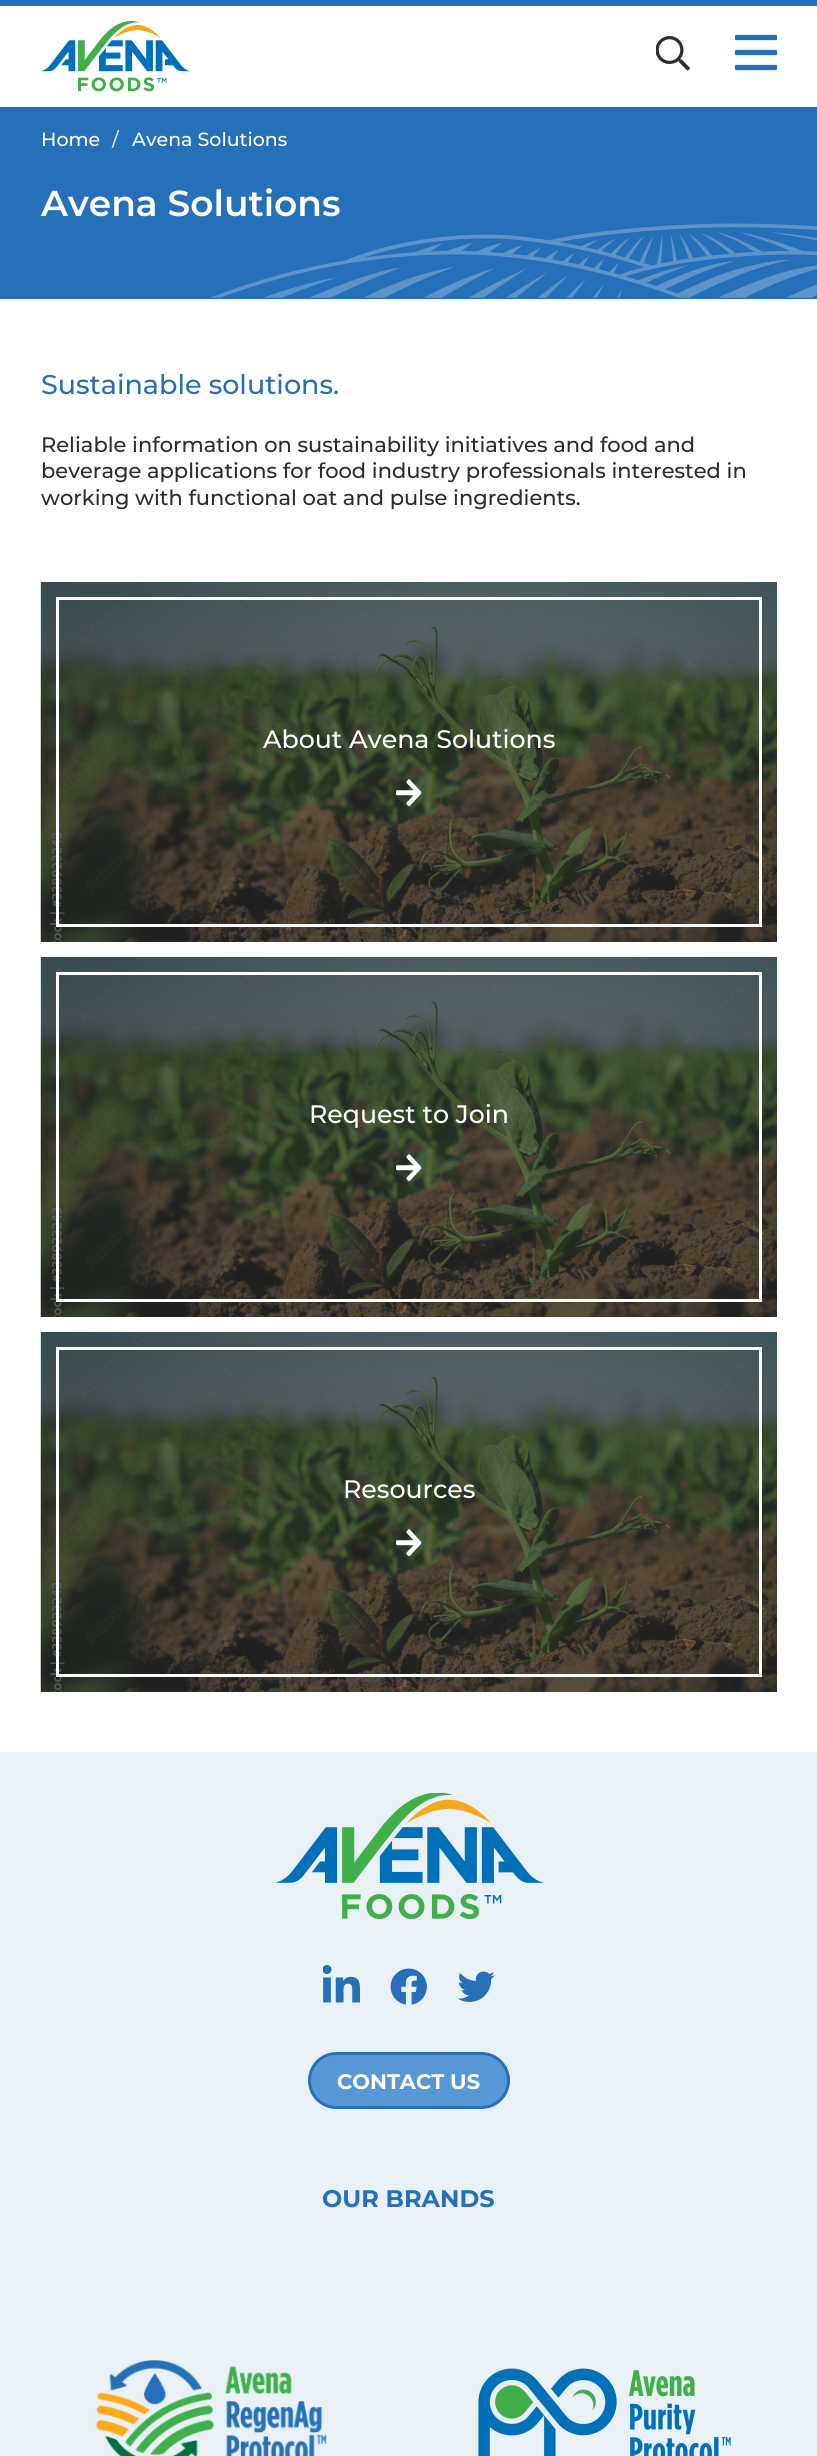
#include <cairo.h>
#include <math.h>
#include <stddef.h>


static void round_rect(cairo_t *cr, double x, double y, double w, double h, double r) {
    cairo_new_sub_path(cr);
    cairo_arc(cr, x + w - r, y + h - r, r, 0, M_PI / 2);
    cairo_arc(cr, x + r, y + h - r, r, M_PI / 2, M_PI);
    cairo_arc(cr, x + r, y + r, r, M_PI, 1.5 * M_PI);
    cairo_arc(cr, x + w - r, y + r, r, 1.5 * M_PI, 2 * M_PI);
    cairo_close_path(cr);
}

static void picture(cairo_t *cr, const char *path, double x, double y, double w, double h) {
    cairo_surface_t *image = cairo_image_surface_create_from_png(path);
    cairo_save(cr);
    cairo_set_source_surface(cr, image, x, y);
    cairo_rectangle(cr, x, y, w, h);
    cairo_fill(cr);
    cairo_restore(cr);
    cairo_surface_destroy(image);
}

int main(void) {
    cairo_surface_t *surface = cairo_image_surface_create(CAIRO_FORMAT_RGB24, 817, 2456);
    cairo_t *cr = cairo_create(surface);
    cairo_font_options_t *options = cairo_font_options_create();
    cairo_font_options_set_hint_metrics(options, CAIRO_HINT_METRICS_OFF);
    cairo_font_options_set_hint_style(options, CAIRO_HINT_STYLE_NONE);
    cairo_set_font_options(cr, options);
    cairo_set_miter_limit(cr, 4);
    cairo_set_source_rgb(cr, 1, 1, 1);
    cairo_paint(cr);
    cairo_set_source_rgb(cr, 0.145, 0.439, 0.722);
    cairo_rectangle(cr, 0, 0, 817, 6);
    cairo_fill(cr);
    picture(cr, "img1.png", 41, 21, 149, 71);
    picture(cr, "img2.png", 656, 36, 34, 35);
    picture(cr, "img3.png", 735, 34, 42, 37);
    cairo_rectangle(cr, 0, 107, 817, 192);
    cairo_fill(cr);
    picture(cr, "img4.png", 210, 223, 607, 75);
    cairo_select_font_face(cr, "Montserrat Medium", CAIRO_FONT_SLANT_NORMAL, CAIRO_FONT_WEIGHT_NORMAL);
    cairo_set_font_size(cr, 19);
    cairo_set_source_rgb(cr, 1, 1, 1);
    cairo_move_to(cr, 41, 146);
    cairo_show_text(cr, "Home");
    cairo_set_source_rgb(cr, 0.827, 0.886, 0.945);
    cairo_move_to(cr, 112, 146);
    cairo_show_text(cr, "/");
    cairo_set_source_rgb(cr, 1, 1, 1);
    cairo_move_to(cr, 132, 146);
    cairo_show_text(cr, "Avena Solutions");
    cairo_select_font_face(cr, "Montserrat SemiBold", CAIRO_FONT_SLANT_NORMAL, CAIRO_FONT_WEIGHT_NORMAL);
    cairo_set_font_size(cr, 36);
    cairo_move_to(cr, 41, 216);
    cairo_show_text(cr, "Avena Solutions");
    cairo_select_font_face(cr, "Montserrat Medium", CAIRO_FONT_SLANT_NORMAL, CAIRO_FONT_WEIGHT_NORMAL);
    cairo_set_font_size(cr, 27);
    cairo_set_source_rgb(cr, 0.145, 0.439, 0.722);
    cairo_move_to(cr, 41, 394);
    cairo_show_text(cr, "Sustainable solutions.");
    cairo_set_font_size(cr, 21);
    cairo_set_source_rgb(cr, 0.173, 0.173, 0.173);
    cairo_move_to(cr, 41, 452);
    cairo_show_text(cr, "Reliable information on sustainability initiatives and food and");
    cairo_move_to(cr, 41, 478);
    cairo_show_text(cr, "beverage applications for food industry professionals interested in");
    cairo_move_to(cr, 41, 505);
    cairo_show_text(cr, "working with functional oat and pulse ingredients.");
    picture(cr, "img5.png", 40, 582, 737, 360);
    cairo_rectangle(cr, 57.5, 598.5, 703, 327);
    cairo_set_source_rgb(cr, 1, 1, 1);
    cairo_set_line_width(cr, 3);
    cairo_stroke(cr);
    cairo_set_font_size(cr, 25.25);
    cairo_move_to(cr, 263, 748);
    cairo_show_text(cr, "About Avena Solutions");
    picture(cr, "img6.png", 396, 779, 26, 28);
    picture(cr, "img5.png", 40, 957, 737, 360);
    cairo_rectangle(cr, 57.5, 973.5, 703, 327);
    cairo_stroke(cr);
    cairo_move_to(cr, 309, 1123);
    cairo_show_text(cr, "Request to Join");
    picture(cr, "img6.png", 396, 1154, 26, 28);
    picture(cr, "img5.png", 40, 1332, 737, 360);
    cairo_rectangle(cr, 57.5, 1348.5, 703, 327);
    cairo_stroke(cr);
    cairo_move_to(cr, 343, 1498);
    cairo_show_text(cr, "Resources");
    picture(cr, "img6.png", 396, 1529, 26, 28);
    cairo_set_source_rgb(cr, 0.914, 0.945, 0.961);
    cairo_rectangle(cr, 0, 1752, 817, 704);
    cairo_fill(cr);
    picture(cr, "img7.png", 275, 1793, 269, 127);
    picture(cr, "img8.png", 323, 1965, 37, 38);
    picture(cr, "img9.png", 390, 1968, 37, 37);
    picture(cr, "img10.png", 458, 1971, 37, 31);
    cairo_set_source_rgb(cr, 0.341, 0.592, 0.835);
    round_rect(cr, 309.5, 2053.5, 199, 54, 27);
    cairo_fill_preserve(cr);
    cairo_set_source_rgb(cr, 0.145, 0.439, 0.722);
    cairo_stroke(cr);
    cairo_select_font_face(cr, "Montserrat", CAIRO_FONT_SLANT_NORMAL, CAIRO_FONT_WEIGHT_BOLD);
    cairo_set_font_size(cr, 21);
    cairo_set_source_rgb(cr, 1, 1, 1);
    cairo_move_to(cr, 337, 2089);
    cairo_show_text(cr, "CONTACT US");
    cairo_set_font_size(cr, 24);
    cairo_set_source_rgb(cr, 0.145, 0.439, 0.722);
    cairo_move_to(cr, 322, 2207);
    cairo_show_text(cr, "OUR BRANDS");
    picture(cr, "img11.png", 95, 2360, 232, 96);
    picture(cr, "img12.png", 478, 2368, 253, 88);
    cairo_surface_write_to_png(surface, "page.png");
    cairo_font_options_destroy(options);
    cairo_destroy(cr);
    cairo_surface_destroy(surface);
    return 0;
}
